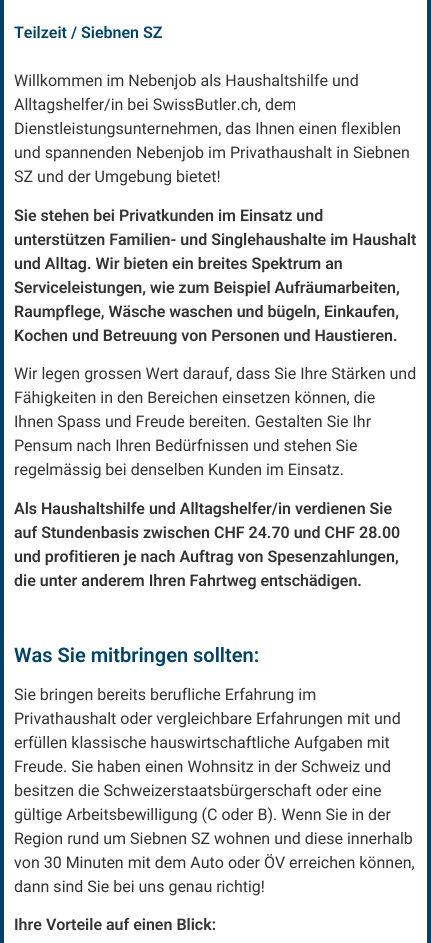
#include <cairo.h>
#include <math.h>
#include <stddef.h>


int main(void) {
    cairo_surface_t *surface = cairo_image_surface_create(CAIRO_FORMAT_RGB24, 431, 943);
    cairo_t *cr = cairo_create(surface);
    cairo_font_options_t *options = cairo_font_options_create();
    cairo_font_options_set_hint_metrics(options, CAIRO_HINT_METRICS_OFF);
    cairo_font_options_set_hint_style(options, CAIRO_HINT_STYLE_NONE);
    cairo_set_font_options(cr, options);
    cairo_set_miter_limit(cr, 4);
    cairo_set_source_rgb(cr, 0, 0.263, 0.404);
    cairo_paint(cr);
    cairo_set_source_rgb(cr, 1, 1, 1);
    cairo_rectangle(cr, 4, 0, 423, 943);
    cairo_fill(cr);
    cairo_select_font_face(cr, "Roboto SemiBold", CAIRO_FONT_SLANT_NORMAL, CAIRO_FONT_WEIGHT_NORMAL);
    cairo_set_font_size(cr, 16);
    cairo_set_source_rgb(cr, 0, 0.263, 0.404);
    cairo_move_to(cr, 14, 38);
    cairo_show_text(cr, "Teilzeit / Siebnen SZ");
    cairo_select_font_face(cr, "Roboto", CAIRO_FONT_SLANT_NORMAL, CAIRO_FONT_WEIGHT_NORMAL);
    cairo_set_source_rgb(cr, 0.2, 0.2, 0.2);
    cairo_move_to(cr, 14, 86);
    cairo_show_text(cr, "Willkommen im Nebenjob als Haushaltshilfe und");
    cairo_move_to(cr, 14, 110);
    cairo_show_text(cr, "Alltagshelfer/in bei SwissButler.ch, dem");
    cairo_move_to(cr, 14, 134);
    cairo_show_text(cr, "Dienstleistungsunternehmen, das Ihnen einen flexiblen");
    cairo_move_to(cr, 14, 158);
    cairo_show_text(cr, "und spannenden Nebenjob im Privathaushalt in Siebnen");
    cairo_move_to(cr, 14, 182);
    cairo_show_text(cr, "SZ und der Umgebung bietet!");
    cairo_select_font_face(cr, "Roboto SemiBold", CAIRO_FONT_SLANT_NORMAL, CAIRO_FONT_WEIGHT_NORMAL);
    cairo_move_to(cr, 14, 221);
    cairo_show_text(cr, "Sie stehen bei Privatkunden im Einsatz und");
    cairo_move_to(cr, 14, 245);
    cairo_show_text(cr, "unterstützen Familien- und Singlehaushalte im Haushalt");
    cairo_move_to(cr, 14, 269);
    cairo_show_text(cr, "und Alltag. Wir bieten ein breites Spektrum an");
    cairo_move_to(cr, 14, 293);
    cairo_show_text(cr, "Serviceleistungen, wie zum Beispiel Aufräumarbeiten,");
    cairo_move_to(cr, 14, 317);
    cairo_show_text(cr, "Raumpflege, Wäsche waschen und bügeln, Einkaufen,");
    cairo_move_to(cr, 14, 341);
    cairo_show_text(cr, "Kochen und Betreuung von Personen und Haustieren.");
    cairo_select_font_face(cr, "Roboto", CAIRO_FONT_SLANT_NORMAL, CAIRO_FONT_WEIGHT_NORMAL);
    cairo_move_to(cr, 14, 379);
    cairo_show_text(cr, "Wir legen grossen Wert darauf, dass Sie Ihre Stärken und");
    cairo_move_to(cr, 14, 403);
    cairo_show_text(cr, "Fähigkeiten in den Bereichen einsetzen können, die");
    cairo_move_to(cr, 14, 427);
    cairo_show_text(cr, "Ihnen Spass und Freude bereiten. Gestalten Sie Ihr");
    cairo_move_to(cr, 14, 451);
    cairo_show_text(cr, "Pensum nach Ihren Bedürfnissen und stehen Sie");
    cairo_move_to(cr, 14, 475);
    cairo_show_text(cr, "regelmässig bei denselben Kunden im Einsatz.");
    cairo_select_font_face(cr, "Roboto SemiBold", CAIRO_FONT_SLANT_NORMAL, CAIRO_FONT_WEIGHT_NORMAL);
    cairo_move_to(cr, 14, 514);
    cairo_show_text(cr, "Als Haushaltshilfe und Alltagshelfer/in verdienen Sie");
    cairo_move_to(cr, 14, 538);
    cairo_show_text(cr, "auf Stundenbasis zwischen CHF 24.70 und CHF 28.00");
    cairo_move_to(cr, 14, 562);
    cairo_show_text(cr, "und profitieren je nach Auftrag von Spesenzahlungen,");
    cairo_move_to(cr, 14, 586);
    cairo_show_text(cr, "die unter anderem Ihren Fahrtweg entschädigen.");
    cairo_set_font_size(cr, 20);
    cairo_set_source_rgb(cr, 0, 0.263, 0.404);
    cairo_move_to(cr, 14, 662);
    cairo_show_text(cr, "Was Sie mitbringen sollten:");
    cairo_select_font_face(cr, "Roboto", CAIRO_FONT_SLANT_NORMAL, CAIRO_FONT_WEIGHT_NORMAL);
    cairo_set_font_size(cr, 16);
    cairo_set_source_rgb(cr, 0.2, 0.2, 0.2);
    cairo_move_to(cr, 14, 700);
    cairo_show_text(cr, "Sie bringen bereits berufliche Erfahrung im");
    cairo_move_to(cr, 14, 724);
    cairo_show_text(cr, "Privathaushalt oder vergleichbare Erfahrungen mit und");
    cairo_move_to(cr, 14, 748);
    cairo_show_text(cr, "erfüllen klassische hauswirtschaftliche Aufgaben mit");
    cairo_move_to(cr, 14, 772);
    cairo_show_text(cr, "Freude. Sie haben einen Wohnsitz in der Schweiz und");
    cairo_move_to(cr, 14, 796);
    cairo_show_text(cr, "besitzen die Schweizerstaatsbürgerschaft oder eine");
    cairo_move_to(cr, 14, 820);
    cairo_show_text(cr, "gültige Arbeitsbewilligung (C oder B). Wenn Sie in der");
    cairo_move_to(cr, 14, 844);
    cairo_show_text(cr, "Region rund um Siebnen SZ wohnen und diese innerhalb");
    cairo_move_to(cr, 14, 868);
    cairo_show_text(cr, "von 30 Minuten mit dem Auto oder ÖV erreichen können,");
    cairo_move_to(cr, 14, 892);
    cairo_show_text(cr, "dann sind Sie bei uns genau richtig!");
    cairo_select_font_face(cr, "Roboto SemiBold", CAIRO_FONT_SLANT_NORMAL, CAIRO_FONT_WEIGHT_NORMAL);
    cairo_move_to(cr, 14, 930);
    cairo_show_text(cr, "Ihre Vorteile auf einen Blick:");
    cairo_surface_write_to_png(surface, "page.png");
    cairo_font_options_destroy(options);
    cairo_destroy(cr);
    cairo_surface_destroy(surface);
    return 0;
}
